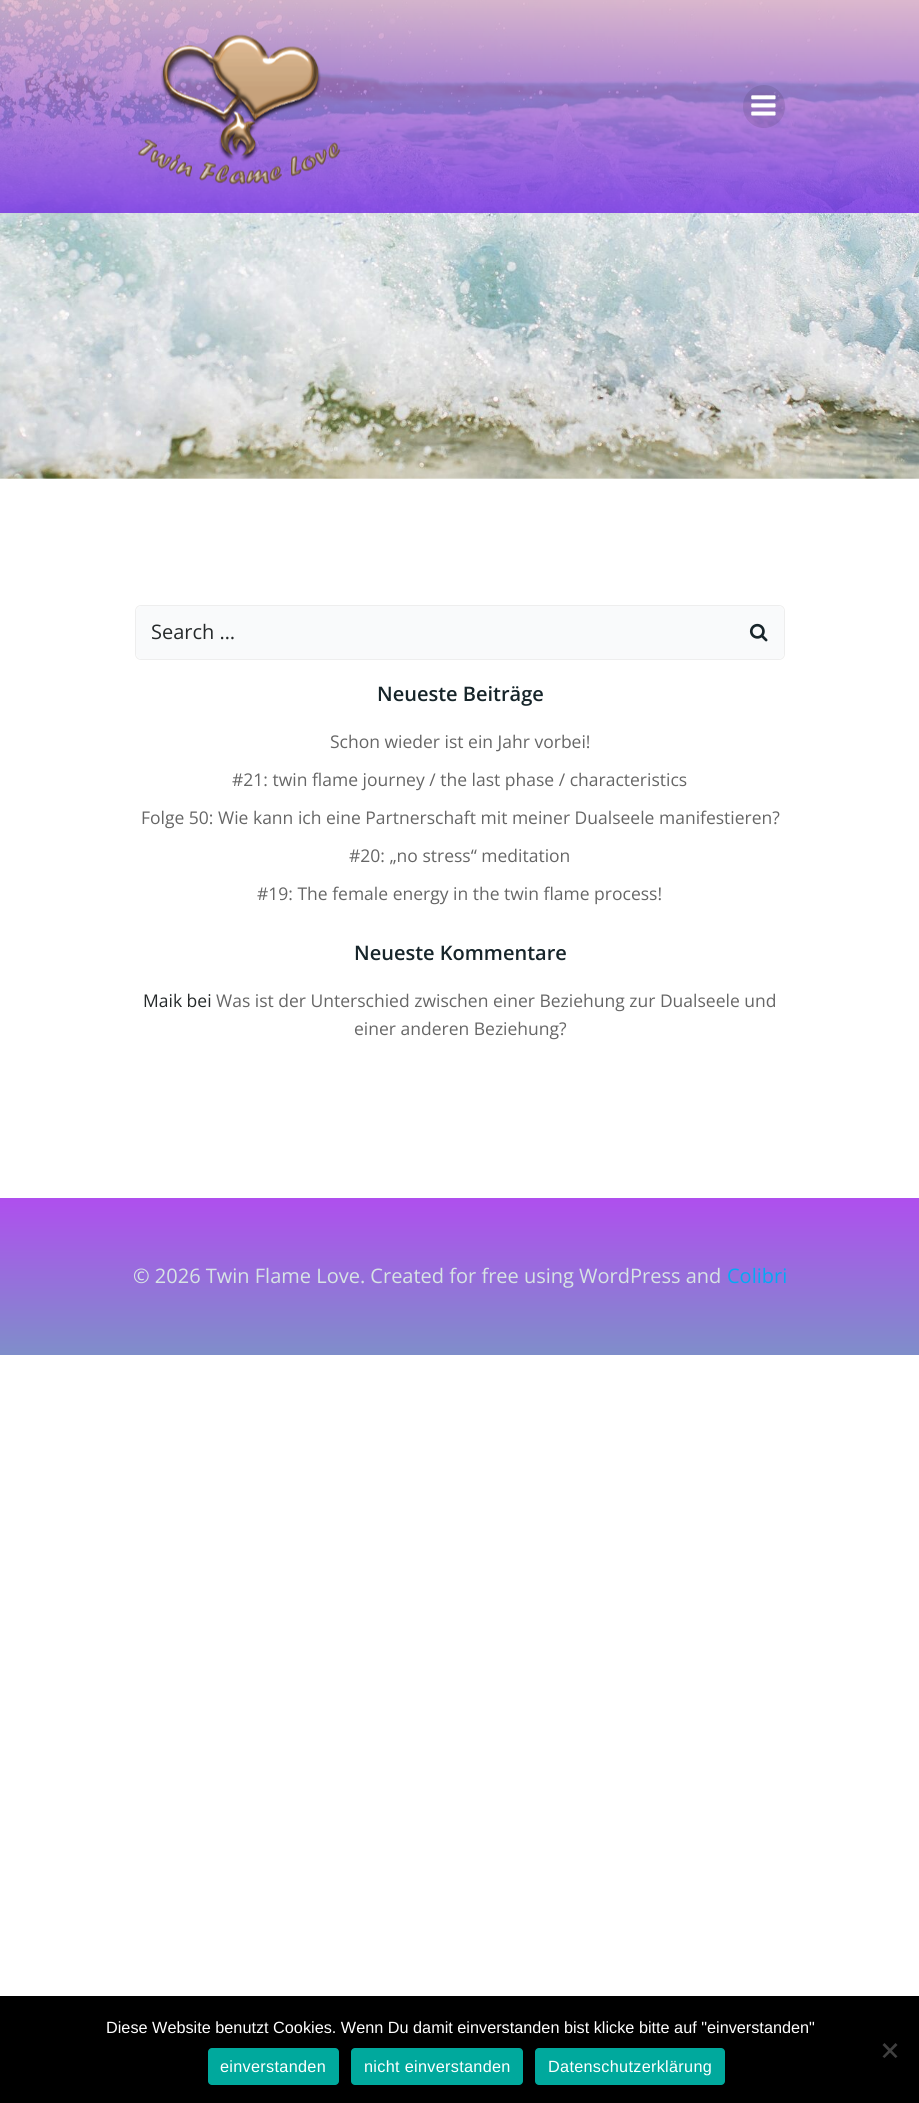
#include <cairo.h>
#include <math.h>
#include <stddef.h>


static void spaced_text(cairo_t *cr, double x, double y, const char *s, double letter, double word) {
    cairo_move_to(cr, x, y);
    while (*s) {
        char ch[5] = {0};
        int n = 0;
        do ch[n++] = *s++; while ((*s & 0xC0) == 0x80);
        cairo_show_text(cr, ch);
        cairo_rel_move_to(cr, letter + word * (*ch == ' '), 0);
    }
}

static void round_rect(cairo_t *cr, double x, double y, double w, double h, double r) {
    cairo_new_sub_path(cr);
    cairo_arc(cr, x + w - r, y + h - r, r, 0, M_PI / 2);
    cairo_arc(cr, x + r, y + h - r, r, M_PI / 2, M_PI);
    cairo_arc(cr, x + r, y + r, r, M_PI, 1.5 * M_PI);
    cairo_arc(cr, x + w - r, y + r, r, 1.5 * M_PI, 2 * M_PI);
    cairo_close_path(cr);
}

static void picture(cairo_t *cr, const char *path, double x, double y, double w, double h) {
    cairo_surface_t *image = cairo_image_surface_create_from_png(path);
    cairo_save(cr);
    cairo_set_source_surface(cr, image, x, y);
    cairo_rectangle(cr, x, y, w, h);
    cairo_fill(cr);
    cairo_restore(cr);
    cairo_surface_destroy(image);
}

int main(void) {
    cairo_surface_t *surface = cairo_image_surface_create(CAIRO_FORMAT_RGB24, 919, 2103);
    cairo_t *cr = cairo_create(surface);
    cairo_font_options_t *options = cairo_font_options_create();
    cairo_font_options_set_hint_metrics(options, CAIRO_HINT_METRICS_OFF);
    cairo_font_options_set_hint_style(options, CAIRO_HINT_STYLE_NONE);
    cairo_set_font_options(cr, options);
    cairo_set_miter_limit(cr, 4);
    cairo_pattern_t *gradient;
    cairo_set_source_rgb(cr, 1, 1, 1);
    cairo_paint(cr);
    picture(cr, "img1.png", 0, 0, 919, 479);
    picture(cr, "img2.png", 138, 34, 203, 151);
    cairo_set_source_rgba(cr, 0, 0, 0, 0.1);
    round_rect(cr, 743, 85, 42, 43, 21);
    cairo_fill(cr);
    picture(cr, "img3.png", 751, 95, 25, 21);
    round_rect(cr, 135.5, 605.5, 649, 54, 5.5);
    cairo_set_source_rgb(cr, 0.933, 0.933, 0.933);
    cairo_set_line_width(cr, 1);
    cairo_stroke(cr);
    cairo_save(cr);
    round_rect(cr, 136, 606, 648, 53, 5);
    cairo_clip(cr);
    cairo_set_source_rgb(cr, 0.976, 0.98, 0.984);
    cairo_new_path(cr);
    cairo_move_to(cr, 142, 606);
    cairo_line_to(cr, 734, 606);
    cairo_line_to(cr, 734, 659);
    cairo_line_to(cr, 142, 659);
    cairo_curve_to(cr, 138.5, 659, 136, 656.5, 136, 653);
    cairo_line_to(cr, 136, 612);
    cairo_curve_to(cr, 136, 608.5, 138.5, 606, 142, 606);
    cairo_close_path(cr);
    cairo_fill(cr);
    cairo_restore(cr);
    cairo_select_font_face(cr, "Open Sans", CAIRO_FONT_SLANT_NORMAL, CAIRO_FONT_WEIGHT_NORMAL);
    cairo_set_font_size(cr, 20);
    cairo_set_source_rgb(cr, 0.145, 0.161, 0.165);
    cairo_move_to(cr, 151, 639);
    cairo_show_text(cr, "Search …");
    cairo_save(cr);
    round_rect(cr, 136, 606, 648, 53, 5);
    cairo_clip(cr);
    cairo_set_source_rgb(cr, 0.976, 0.98, 0.984);
    cairo_new_path(cr);
    cairo_move_to(cr, 734, 606);
    cairo_line_to(cr, 778, 606);
    cairo_curve_to(cr, 781.5, 606, 784, 608.5, 784, 612);
    cairo_line_to(cr, 784, 653);
    cairo_curve_to(cr, 784, 656.5, 781.5, 659, 778, 659);
    cairo_line_to(cr, 734, 659);
    cairo_close_path(cr);
    cairo_fill(cr);
    cairo_restore(cr);
    picture(cr, "img4.png", 749, 623, 19, 19);
    cairo_select_font_face(cr, "Open Sans SemiBold", CAIRO_FONT_SLANT_NORMAL, CAIRO_FONT_WEIGHT_NORMAL);
    cairo_set_source_rgb(cr, 0.09, 0.145, 0.165);
    cairo_move_to(cr, 377, 701);
    cairo_show_text(cr, "Neueste Beiträge");
    cairo_select_font_face(cr, "Open Sans", CAIRO_FONT_SLANT_NORMAL, CAIRO_FONT_WEIGHT_NORMAL);
    cairo_set_font_size(cr, 17.5);
    cairo_set_source_rgb(cr, 0.4, 0.4, 0.4);
    cairo_move_to(cr, 330, 748);
    cairo_show_text(cr, "Schon wieder ist ein Jahr vorbei!");
    cairo_move_to(cr, 232, 786);
    cairo_show_text(cr, "#21: twin flame journey / the last phase / characteristics");
    cairo_move_to(cr, 141, 824);
    cairo_show_text(cr, "Folge 50: Wie kann ich eine Partnerschaft mit meiner Dualseele manifestieren?");
    cairo_move_to(cr, 349, 862);
    cairo_show_text(cr, "#20: „no stress“ meditation");
    cairo_move_to(cr, 257, 900);
    cairo_show_text(cr, "#19: The female energy in the twin flame process!");
    cairo_select_font_face(cr, "Open Sans SemiBold", CAIRO_FONT_SLANT_NORMAL, CAIRO_FONT_WEIGHT_NORMAL);
    cairo_set_font_size(cr, 20);
    cairo_set_source_rgb(cr, 0.09, 0.145, 0.165);
    cairo_move_to(cr, 354, 960);
    cairo_show_text(cr, "Neueste Kommentare");
    cairo_select_font_face(cr, "Open Sans", CAIRO_FONT_SLANT_NORMAL, CAIRO_FONT_WEIGHT_NORMAL);
    cairo_set_font_size(cr, 17.5);
    cairo_set_source_rgb(cr, 0.145, 0.161, 0.165);
    cairo_move_to(cr, 143, 1007);
    cairo_show_text(cr, "Maik bei");
    cairo_set_source_rgb(cr, 0.4, 0.4, 0.4);
    cairo_move_to(cr, 216, 1007);
    cairo_show_text(cr, "Was ist der Unterschied zwischen einer Beziehung zur Dualseele und");
    cairo_move_to(cr, 354, 1035);
    cairo_show_text(cr, "einer anderen Beziehung?");
    gradient = cairo_pattern_create_linear(460, 1355, 460, 1198);
    cairo_pattern_add_color_stop_rgba(gradient, 0, 0.498, 0.557, 0.792, 1);
    cairo_pattern_add_color_stop_rgba(gradient, 1, 0.686, 0.31, 0.933, 1);
    cairo_set_source(cr, gradient);
    cairo_pattern_destroy(gradient);
    cairo_rectangle(cr, 0, 1198, 919, 157);
    cairo_fill(cr);
    cairo_set_font_size(cr, 20);
    cairo_set_source_rgb(cr, 0.843, 0.894, 0.894);
    cairo_move_to(cr, 133, 1283);
    cairo_show_text(cr, "© 2026 Twin Flame Love. Created for free using WordPress and");
    cairo_set_source_rgb(cr, 0.012, 0.663, 0.957);
    cairo_move_to(cr, 727, 1283);
    cairo_show_text(cr, "Colibri");
    cairo_set_source_rgb(cr, 0, 0, 0);
    cairo_rectangle(cr, 0, 1996, 919, 107);
    cairo_fill(cr);
    cairo_select_font_face(cr, "Liberation Sans", CAIRO_FONT_SLANT_NORMAL, CAIRO_FONT_WEIGHT_NORMAL);
    cairo_set_font_size(cr, 16.25);
    cairo_set_source_rgb(cr, 1, 1, 1);
    cairo_move_to(cr, 106, 2033);
    cairo_show_text(cr, "Diese Website benutzt Cookies. Wenn Du damit einverstanden bist klicke bitte auf \"einverstanden\"");
    cairo_set_source_rgb(cr, 0.251, 0.251, 0.251);
    cairo_new_path(cr);
    cairo_move_to(cr, 895.5, 2043);
    cairo_line_to(cr, 897.5, 2045);
    cairo_line_to(cr, 884.5, 2058);
    cairo_line_to(cr, 882.5, 2056.5);
    cairo_close_path(cr);
    cairo_fill(cr);
    cairo_new_path(cr);
    cairo_move_to(cr, 882.5, 2045);
    cairo_line_to(cr, 884.5, 2043);
    cairo_line_to(cr, 897.5, 2056.5);
    cairo_line_to(cr, 895.5, 2058);
    cairo_close_path(cr);
    cairo_fill(cr);
    cairo_set_source_rgb(cr, 0, 0.663, 0.616);
    round_rect(cr, 208, 2048, 131, 37, 4);
    cairo_fill(cr);
    cairo_set_source_rgb(cr, 1, 1, 1);
    spaced_text(cr, 220, 2072, "einverstanden", 0.3, 0);
    cairo_set_source_rgb(cr, 0, 0.663, 0.616);
    round_rect(cr, 351, 2048, 172, 37, 4);
    cairo_fill(cr);
    cairo_set_source_rgb(cr, 1, 1, 1);
    spaced_text(cr, 364, 2072, "nicht einverstanden", 0.3, 0);
    cairo_set_source_rgb(cr, 0, 0.663, 0.616);
    round_rect(cr, 535, 2048, 190, 37, 4);
    cairo_fill(cr);
    cairo_set_source_rgb(cr, 1, 1, 1);
    spaced_text(cr, 548, 2072, "Datenschutzerklärung", 0.3, 0);
    cairo_surface_write_to_png(surface, "page.png");
    cairo_font_options_destroy(options);
    cairo_destroy(cr);
    cairo_surface_destroy(surface);
    return 0;
}
